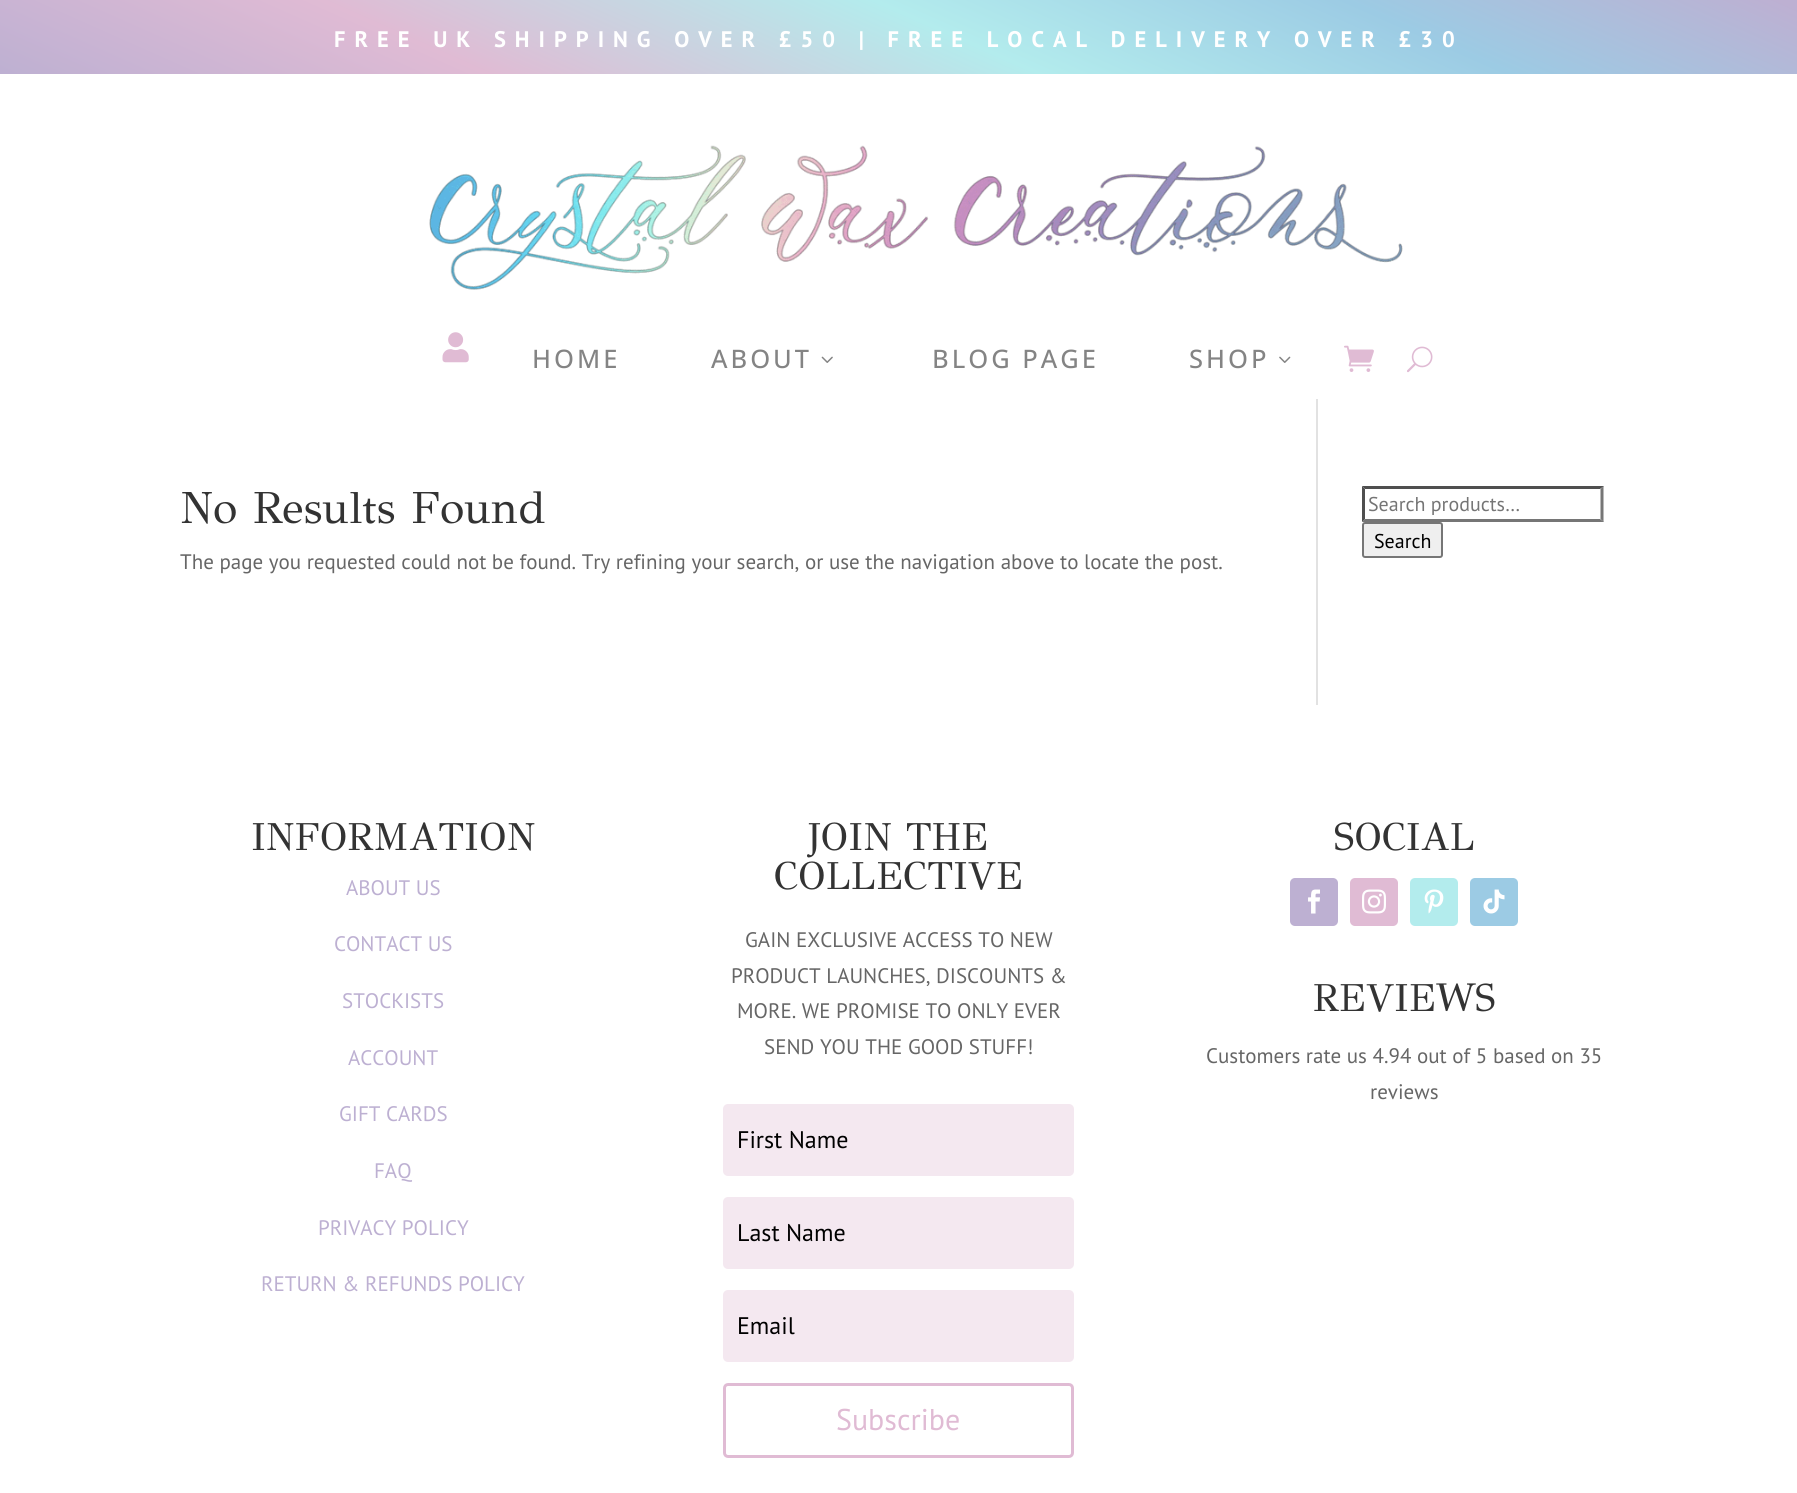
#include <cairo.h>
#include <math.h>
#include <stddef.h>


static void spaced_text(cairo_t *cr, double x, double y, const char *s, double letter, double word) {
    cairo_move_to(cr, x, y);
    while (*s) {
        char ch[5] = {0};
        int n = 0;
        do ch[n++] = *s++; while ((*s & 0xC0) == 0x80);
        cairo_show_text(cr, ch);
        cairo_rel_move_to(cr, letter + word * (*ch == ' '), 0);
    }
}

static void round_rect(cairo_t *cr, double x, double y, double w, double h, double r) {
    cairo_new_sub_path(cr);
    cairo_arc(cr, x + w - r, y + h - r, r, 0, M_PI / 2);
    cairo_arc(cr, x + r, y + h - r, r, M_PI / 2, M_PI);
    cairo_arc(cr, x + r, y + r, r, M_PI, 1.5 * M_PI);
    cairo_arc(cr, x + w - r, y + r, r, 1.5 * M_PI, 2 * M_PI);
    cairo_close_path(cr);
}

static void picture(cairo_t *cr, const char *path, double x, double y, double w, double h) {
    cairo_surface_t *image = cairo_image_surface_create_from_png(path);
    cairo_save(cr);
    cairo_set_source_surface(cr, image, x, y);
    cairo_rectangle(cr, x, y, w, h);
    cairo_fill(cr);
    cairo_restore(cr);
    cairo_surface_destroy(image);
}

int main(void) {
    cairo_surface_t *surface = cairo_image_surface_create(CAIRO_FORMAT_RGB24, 1797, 1493);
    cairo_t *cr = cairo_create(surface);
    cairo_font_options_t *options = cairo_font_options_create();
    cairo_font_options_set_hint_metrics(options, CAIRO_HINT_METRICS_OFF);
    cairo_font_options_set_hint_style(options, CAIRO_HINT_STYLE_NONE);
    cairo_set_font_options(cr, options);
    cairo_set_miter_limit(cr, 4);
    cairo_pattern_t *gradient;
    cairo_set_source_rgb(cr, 1, 1, 1);
    cairo_paint(cr);
    gradient = cairo_pattern_create_linear(736, 403, 1061, -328);
    cairo_pattern_add_color_stop_rgba(gradient, 0, 0.741, 0.69, 0.824, 1);
    cairo_pattern_add_color_stop_rgba(gradient, 0.25, 0.878, 0.733, 0.831, 1);
    cairo_pattern_add_color_stop_rgba(gradient, 0.53, 0.702, 0.925, 0.929, 1);
    cairo_pattern_add_color_stop_rgba(gradient, 0.77, 0.612, 0.796, 0.894, 1);
    cairo_pattern_add_color_stop_rgba(gradient, 0.99, 0.741, 0.69, 0.824, 1);
    cairo_set_source(cr, gradient);
    cairo_pattern_destroy(gradient);
    cairo_rectangle(cr, 0, 0, 1797, 74);
    cairo_fill(cr);
    cairo_select_font_face(cr, "PT Sans", CAIRO_FONT_SLANT_NORMAL, CAIRO_FONT_WEIGHT_BOLD);
    cairo_set_font_size(cr, 22.5);
    cairo_set_source_rgb(cr, 1, 1, 1);
    spaced_text(cr, 334, 47, "FREE UK SHIPPING OVER £50 | FREE LOCAL DELIVERY OVER £30", 9, 0);
    picture(cr, "img1.png", 429, 145, 974, 145);
    picture(cr, "img2.png", 442, 332, 27, 31);
    cairo_select_font_face(cr, "Open Sans Medium", CAIRO_FONT_SLANT_NORMAL, CAIRO_FONT_WEIGHT_NORMAL);
    cairo_set_font_size(cr, 25.5);
    cairo_set_source_rgb(cr, 0.518, 0.518, 0.518);
    spaced_text(cr, 532, 368, "HOME", 3, 0);
    spaced_text(cr, 711, 368, "ABOUT", 3, 0);
    picture(cr, "img3.png", 821, 356, 12, 7);
    spaced_text(cr, 932, 368, "BLOG PAGE", 3, 0);
    spaced_text(cr, 1189, 368, "SHOP", 3, 0);
    picture(cr, "img4.png", 1279, 356, 12, 7);
    picture(cr, "img5.png", 1344, 345, 30, 27);
    picture(cr, "img6.png", 1407, 346, 26, 27);
    cairo_set_source_rgb(cr, 0.886, 0.886, 0.886);
    cairo_rectangle(cr, 1316, 399, 2, 306);
    cairo_fill(cr);
    cairo_select_font_face(cr, "GFS Didot", CAIRO_FONT_SLANT_NORMAL, CAIRO_FONT_WEIGHT_NORMAL);
    cairo_set_font_size(cr, 45);
    cairo_set_source_rgb(cr, 0.2, 0.2, 0.2);
    cairo_move_to(cr, 180, 523);
    cairo_show_text(cr, "No Results Found");
    cairo_select_font_face(cr, "PT Sans", CAIRO_FONT_SLANT_NORMAL, CAIRO_FONT_WEIGHT_NORMAL);
    cairo_set_font_size(cr, 21);
    cairo_set_source_rgb(cr, 0.4, 0.4, 0.4);
    cairo_move_to(cr, 180, 569);
    cairo_show_text(cr, "The page you requested could not be found. Try refining your search, or use the navigation above to locate the post.");
    cairo_set_source_rgb(cr, 0.31, 0.31, 0.31);
    cairo_new_path(cr);
    cairo_move_to(cr, 1362, 486);
    cairo_line_to(cr, 1604, 486);
    cairo_line_to(cr, 1600, 489);
    cairo_line_to(cr, 1365, 489);
    cairo_close_path(cr);
    cairo_fill(cr);
    cairo_set_source_rgb(cr, 0.463, 0.463, 0.463);
    cairo_new_path(cr);
    cairo_move_to(cr, 1603.5, 486);
    cairo_line_to(cr, 1603.5, 522);
    cairo_line_to(cr, 1600.5, 519);
    cairo_line_to(cr, 1600.5, 489);
    cairo_close_path(cr);
    cairo_fill(cr);
    cairo_new_path(cr);
    cairo_move_to(cr, 1604, 522);
    cairo_line_to(cr, 1362, 522);
    cairo_line_to(cr, 1365, 519);
    cairo_line_to(cr, 1600, 519);
    cairo_close_path(cr);
    cairo_fill(cr);
    cairo_set_source_rgb(cr, 0.31, 0.31, 0.31);
    cairo_new_path(cr);
    cairo_move_to(cr, 1362, 522);
    cairo_line_to(cr, 1362, 486);
    cairo_line_to(cr, 1365, 489);
    cairo_line_to(cr, 1365, 519);
    cairo_close_path(cr);
    cairo_fill(cr);
    cairo_set_font_size(cr, 20);
    cairo_set_source_rgb(cr, 0.459, 0.459, 0.459);
    cairo_move_to(cr, 1368, 511);
    cairo_show_text(cr, "Search products…");
    cairo_set_source_rgb(cr, 0.937, 0.937, 0.937);
    round_rect(cr, 1363, 523, 79, 34, 2);
    cairo_fill_preserve(cr);
    cairo_set_source_rgb(cr, 0.463, 0.463, 0.463);
    cairo_stroke(cr);
    cairo_set_source_rgb(cr, 0, 0, 0);
    cairo_move_to(cr, 1374, 548);
    cairo_show_text(cr, "Search");
    cairo_select_font_face(cr, "GFS Didot", CAIRO_FONT_SLANT_NORMAL, CAIRO_FONT_WEIGHT_NORMAL);
    cairo_set_font_size(cr, 39);
    cairo_set_source_rgb(cr, 0.2, 0.2, 0.2);
    cairo_move_to(cr, 251, 850);
    cairo_show_text(cr, "INFORMATION");
    cairo_select_font_face(cr, "PT Sans", CAIRO_FONT_SLANT_NORMAL, CAIRO_FONT_WEIGHT_NORMAL);
    cairo_set_font_size(cr, 21);
    cairo_set_source_rgb(cr, 0.741, 0.69, 0.824);
    cairo_move_to(cr, 346, 895);
    cairo_show_text(cr, "ABOUT US");
    cairo_move_to(cr, 334, 951);
    cairo_show_text(cr, "CONTACT US");
    cairo_move_to(cr, 342, 1008);
    cairo_show_text(cr, "STOCKISTS");
    cairo_move_to(cr, 348, 1065);
    cairo_show_text(cr, "ACCOUNT");
    cairo_move_to(cr, 339, 1121);
    cairo_show_text(cr, "GIFT CARDS");
    cairo_move_to(cr, 374, 1178);
    cairo_show_text(cr, "FAQ");
    cairo_move_to(cr, 318, 1235);
    cairo_show_text(cr, "PRIVACY POLICY");
    cairo_move_to(cr, 261, 1291);
    cairo_show_text(cr, "RETURN & REFUNDS POLICY");
    cairo_select_font_face(cr, "GFS Didot", CAIRO_FONT_SLANT_NORMAL, CAIRO_FONT_WEIGHT_NORMAL);
    cairo_set_font_size(cr, 39);
    cairo_set_source_rgb(cr, 0.2, 0.2, 0.2);
    cairo_move_to(cr, 808, 850);
    cairo_show_text(cr, "JOIN THE");
    cairo_move_to(cr, 774, 889);
    cairo_show_text(cr, "COLLECTIVE");
    cairo_select_font_face(cr, "PT Sans", CAIRO_FONT_SLANT_NORMAL, CAIRO_FONT_WEIGHT_NORMAL);
    cairo_set_font_size(cr, 21);
    cairo_set_source_rgb(cr, 0.4, 0.4, 0.4);
    cairo_move_to(cr, 745, 947);
    cairo_show_text(cr, "GAIN EXCLUSIVE ACCESS TO NEW");
    cairo_move_to(cr, 731, 983);
    cairo_show_text(cr, "PRODUCT LAUNCHES, DISCOUNTS &");
    cairo_move_to(cr, 737, 1018);
    cairo_show_text(cr, "MORE. WE PROMISE TO ONLY EVER");
    cairo_move_to(cr, 764, 1054);
    cairo_show_text(cr, "SEND YOU THE GOOD STUFF!");
    cairo_set_source_rgb(cr, 0.957, 0.91, 0.941);
    round_rect(cr, 723, 1104, 351, 72, 5);
    cairo_fill(cr);
    cairo_set_font_size(cr, 24);
    cairo_set_source_rgb(cr, 0, 0, 0);
    cairo_move_to(cr, 737, 1148);
    cairo_show_text(cr, "First Name");
    cairo_set_source_rgb(cr, 0.957, 0.91, 0.941);
    round_rect(cr, 723, 1197, 351, 72, 5);
    cairo_fill(cr);
    cairo_set_source_rgb(cr, 0, 0, 0);
    cairo_move_to(cr, 737, 1241);
    cairo_show_text(cr, "Last Name");
    cairo_set_source_rgb(cr, 0.957, 0.91, 0.941);
    round_rect(cr, 723, 1290, 351, 72, 5);
    cairo_fill(cr);
    cairo_set_source_rgb(cr, 0, 0, 0);
    cairo_move_to(cr, 737, 1334);
    cairo_show_text(cr, "Email");
    round_rect(cr, 724.5, 1384.5, 348, 72, 3.5);
    cairo_set_source_rgb(cr, 0.878, 0.733, 0.831);
    cairo_set_line_width(cr, 3);
    cairo_stroke(cr);
    cairo_set_font_size(cr, 30);
    cairo_move_to(cr, 836, 1430);
    cairo_show_text(cr, "Subscribe");
    cairo_select_font_face(cr, "GFS Didot", CAIRO_FONT_SLANT_NORMAL, CAIRO_FONT_WEIGHT_NORMAL);
    cairo_set_font_size(cr, 39);
    cairo_set_source_rgb(cr, 0.2, 0.2, 0.2);
    cairo_move_to(cr, 1334, 850);
    cairo_show_text(cr, "SOCIAL");
    cairo_set_source_rgb(cr, 0.741, 0.69, 0.824);
    round_rect(cr, 1290, 878, 48, 48, 5);
    cairo_fill(cr);
    picture(cr, "img7.png", 1308, 889, 12, 25);
    cairo_set_source_rgb(cr, 0.878, 0.733, 0.831);
    round_rect(cr, 1350, 878, 48, 48, 5);
    cairo_fill(cr);
    picture(cr, "img8.png", 1362, 889, 24, 25);
    cairo_set_source_rgb(cr, 0.702, 0.925, 0.929);
    round_rect(cr, 1410, 878, 48, 48, 5);
    cairo_fill(cr);
    picture(cr, "img9.png", 1424, 889, 20, 25);
    cairo_set_source_rgb(cr, 0.612, 0.796, 0.894);
    round_rect(cr, 1470, 878, 48, 48, 5);
    cairo_fill(cr);
    picture(cr, "img10.png", 1483, 889, 22, 25);
    cairo_set_source_rgb(cr, 0.2, 0.2, 0.2);
    cairo_move_to(cr, 1313, 1011);
    cairo_show_text(cr, "REVIEWS");
    cairo_select_font_face(cr, "PT Sans", CAIRO_FONT_SLANT_NORMAL, CAIRO_FONT_WEIGHT_NORMAL);
    cairo_set_font_size(cr, 21);
    cairo_set_source_rgb(cr, 0.4, 0.4, 0.4);
    cairo_move_to(cr, 1206, 1063);
    cairo_show_text(cr, "Customers rate us 4.94 out of 5 based on 35");
    cairo_move_to(cr, 1370, 1099);
    cairo_show_text(cr, "reviews");
    cairo_surface_write_to_png(surface, "page.png");
    cairo_font_options_destroy(options);
    cairo_destroy(cr);
    cairo_surface_destroy(surface);
    return 0;
}
